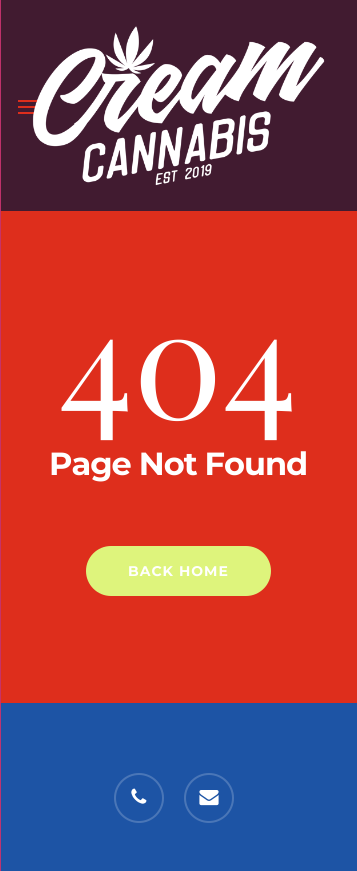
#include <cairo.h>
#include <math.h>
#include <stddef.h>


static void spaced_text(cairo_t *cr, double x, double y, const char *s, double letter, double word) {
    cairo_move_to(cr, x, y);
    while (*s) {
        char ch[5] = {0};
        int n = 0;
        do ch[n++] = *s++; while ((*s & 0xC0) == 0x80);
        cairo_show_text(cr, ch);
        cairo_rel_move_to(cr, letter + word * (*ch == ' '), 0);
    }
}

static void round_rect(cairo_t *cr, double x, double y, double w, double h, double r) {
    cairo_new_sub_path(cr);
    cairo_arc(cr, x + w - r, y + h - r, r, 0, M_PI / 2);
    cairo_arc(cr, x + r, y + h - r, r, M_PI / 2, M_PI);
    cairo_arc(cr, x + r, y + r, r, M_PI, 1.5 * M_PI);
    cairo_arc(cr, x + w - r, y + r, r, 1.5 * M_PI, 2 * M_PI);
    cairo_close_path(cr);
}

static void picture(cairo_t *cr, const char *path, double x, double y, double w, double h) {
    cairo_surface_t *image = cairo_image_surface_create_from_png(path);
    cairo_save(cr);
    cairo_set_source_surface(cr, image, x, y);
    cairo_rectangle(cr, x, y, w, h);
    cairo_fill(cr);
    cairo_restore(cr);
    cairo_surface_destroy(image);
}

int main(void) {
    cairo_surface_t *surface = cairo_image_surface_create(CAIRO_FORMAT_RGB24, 357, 871);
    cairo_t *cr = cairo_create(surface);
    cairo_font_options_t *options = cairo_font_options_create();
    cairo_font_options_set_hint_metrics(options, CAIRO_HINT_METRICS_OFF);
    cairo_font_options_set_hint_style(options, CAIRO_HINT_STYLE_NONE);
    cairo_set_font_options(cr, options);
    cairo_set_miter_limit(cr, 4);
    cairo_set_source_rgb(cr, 0.114, 0.329, 0.647);
    cairo_paint(cr);
    cairo_set_source_rgb(cr, 0.255, 0.106, 0.188);
    cairo_rectangle(cr, 1, 0, 356, 211);
    cairo_fill(cr);
    cairo_set_source_rgb(cr, 0.745, 0.192, 0.416);
    cairo_rectangle(cr, 0, 0, 1, 211);
    cairo_fill(cr);
    cairo_set_source_rgb(cr, 0.871, 0.18, 0.11);
    cairo_rectangle(cr, 18, 100, 22, 2);
    cairo_fill(cr);
    cairo_rectangle(cr, 18, 112, 22, 2);
    cairo_fill(cr);
    cairo_rectangle(cr, 18, 106, 22, 2);
    cairo_fill(cr);
    picture(cr, "img1.png", 32, 26, 293, 160);
    cairo_rectangle(cr, 1, 211, 356, 492);
    cairo_fill(cr);
    cairo_set_source_rgb(cr, 0.776, 0.196, 0.412);
    cairo_rectangle(cr, 0, 211, 1, 492);
    cairo_fill(cr);
    cairo_select_font_face(cr, "Playfair Display", CAIRO_FONT_SLANT_NORMAL, CAIRO_FONT_WEIGHT_NORMAL);
    cairo_set_font_size(cr, 150);
    cairo_set_source_rgb(cr, 1, 1, 1);
    cairo_move_to(cr, 59, 419);
    cairo_show_text(cr, "404");
    cairo_select_font_face(cr, "Montserrat Thin", CAIRO_FONT_SLANT_NORMAL, CAIRO_FONT_WEIGHT_NORMAL);
    cairo_set_font_size(cr, 32);
    spaced_text(cr, 49, 475, "Page Not Found", -1, 0);
    cairo_set_source_rgb(cr, 0.871, 0.957, 0.486);
    round_rect(cr, 86, 546, 185, 50, 25);
    cairo_fill(cr);
    cairo_set_font_size(cr, 14);
    cairo_set_source_rgb(cr, 1, 1, 1);
    spaced_text(cr, 128, 576, "BACK HOME", 1, 0);
    cairo_set_source_rgb(cr, 0.741, 0.204, 0.439);
    cairo_rectangle(cr, 0, 703, 1, 168);
    cairo_fill(cr);
    picture(cr, "img2.png", 131, 788, 16, 16);
    cairo_arc(cr, 139, 798, 24, 0, 2 * M_PI);
    cairo_set_source_rgb(cr, 0.29, 0.463, 0.718);
    cairo_stroke(cr);
    picture(cr, "img3.png", 199, 790, 20, 16);
    cairo_arc(cr, 209, 798, 24, 0, 2 * M_PI);
    cairo_stroke(cr);
    cairo_surface_write_to_png(surface, "page.png");
    cairo_font_options_destroy(options);
    cairo_destroy(cr);
    cairo_surface_destroy(surface);
    return 0;
}
